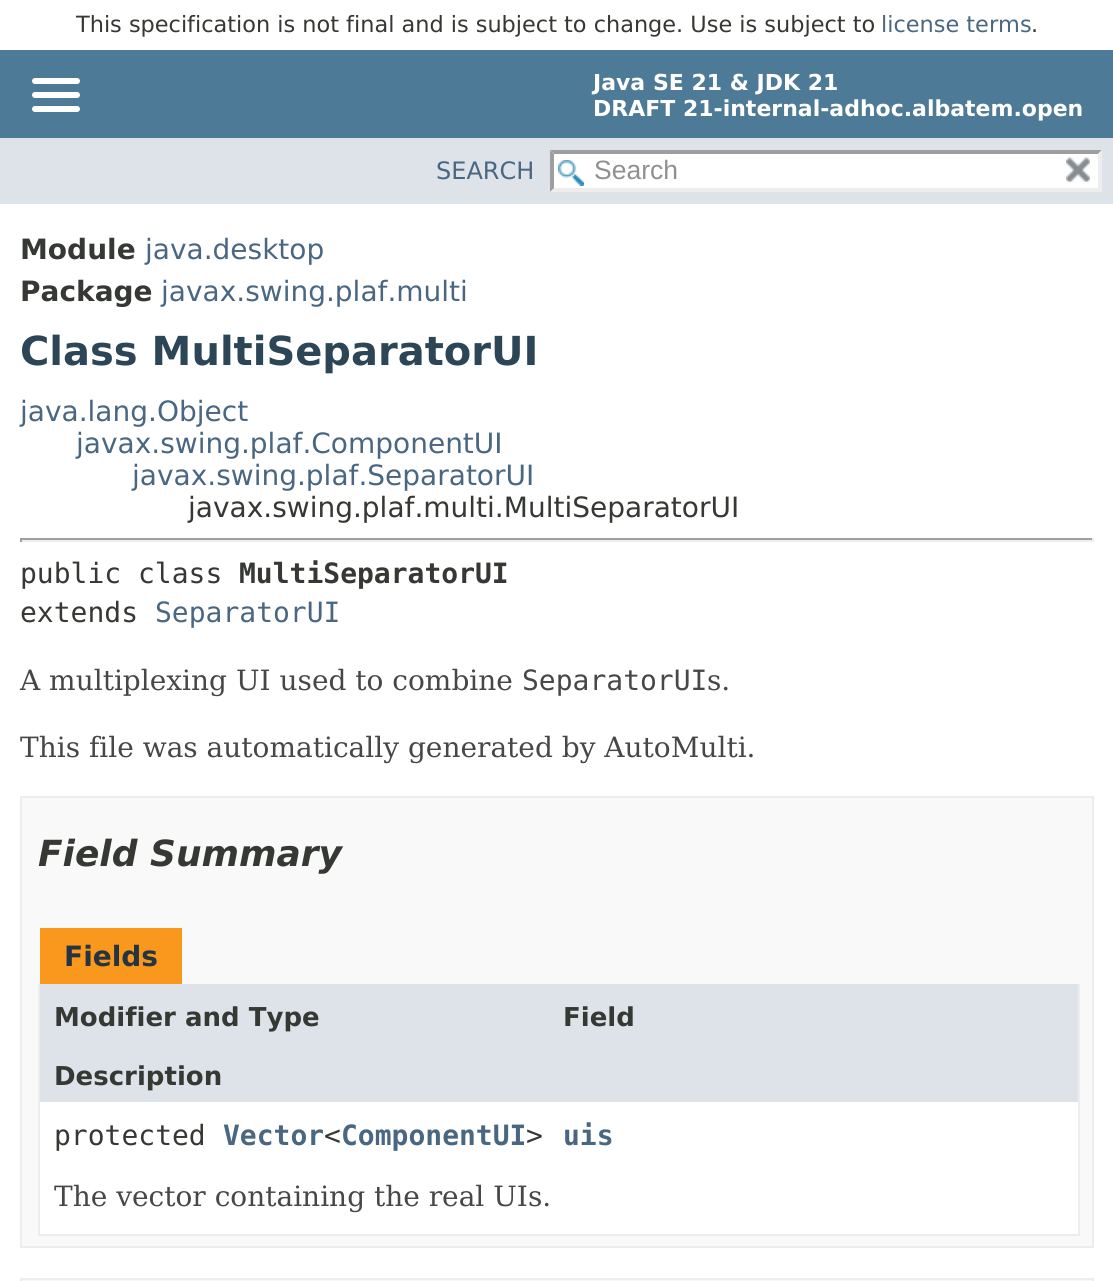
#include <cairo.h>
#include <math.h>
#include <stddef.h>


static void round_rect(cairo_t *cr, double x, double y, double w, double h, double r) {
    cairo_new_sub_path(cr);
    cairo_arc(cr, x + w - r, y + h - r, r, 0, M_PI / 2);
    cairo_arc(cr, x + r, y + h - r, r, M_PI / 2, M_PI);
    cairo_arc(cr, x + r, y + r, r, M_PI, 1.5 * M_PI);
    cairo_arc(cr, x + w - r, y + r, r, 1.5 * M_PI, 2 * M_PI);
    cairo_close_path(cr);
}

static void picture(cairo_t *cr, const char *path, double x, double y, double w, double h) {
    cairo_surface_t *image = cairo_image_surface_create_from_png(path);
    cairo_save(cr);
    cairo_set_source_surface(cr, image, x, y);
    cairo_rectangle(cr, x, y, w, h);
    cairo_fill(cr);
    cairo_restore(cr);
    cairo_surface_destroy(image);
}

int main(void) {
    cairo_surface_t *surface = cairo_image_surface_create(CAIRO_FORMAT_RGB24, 1113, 1281);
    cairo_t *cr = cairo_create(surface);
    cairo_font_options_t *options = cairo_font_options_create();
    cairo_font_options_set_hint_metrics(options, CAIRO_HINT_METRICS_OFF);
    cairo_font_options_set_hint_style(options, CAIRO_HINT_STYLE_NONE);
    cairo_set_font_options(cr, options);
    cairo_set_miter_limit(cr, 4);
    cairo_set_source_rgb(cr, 1, 1, 1);
    cairo_paint(cr);
    cairo_select_font_face(cr, "DejaVu Sans", CAIRO_FONT_SLANT_NORMAL, CAIRO_FONT_WEIGHT_NORMAL);
    cairo_set_font_size(cr, 22.4);
    cairo_set_source_rgb(cr, 0.208, 0.22, 0.2);
    cairo_move_to(cr, 76, 32);
    cairo_show_text(cr, "This specification is not final and is subject to change. Use is subject to");
    cairo_set_source_rgb(cr, 0.29, 0.404, 0.51);
    cairo_move_to(cr, 881, 32);
    cairo_show_text(cr, "license terms");
    cairo_set_source_rgb(cr, 0.208, 0.22, 0.2);
    cairo_move_to(cr, 1031, 32);
    cairo_show_text(cr, ".");
    cairo_set_source_rgb(cr, 0.302, 0.478, 0.592);
    cairo_rectangle(cr, 0, 50, 1113, 88);
    cairo_fill(cr);
    cairo_set_source_rgb(cr, 1, 1, 1);
    round_rect(cr, 32, 78, 48, 6, 3);
    cairo_fill(cr);
    round_rect(cr, 32, 92, 48, 6, 3);
    cairo_fill(cr);
    round_rect(cr, 32, 106, 48, 6, 3);
    cairo_fill(cr);
    cairo_select_font_face(cr, "DejaVu Sans", CAIRO_FONT_SLANT_NORMAL, CAIRO_FONT_WEIGHT_BOLD);
    cairo_set_font_size(cr, 22);
    cairo_move_to(cr, 593, 90);
    cairo_show_text(cr, "Java SE 21 & JDK 21");
    cairo_move_to(cr, 593, 116);
    cairo_show_text(cr, "DRAFT 21-internal-adhoc.albatem.open");
    cairo_set_source_rgb(cr, 0.871, 0.89, 0.914);
    cairo_rectangle(cr, 0, 138, 1113, 66);
    cairo_fill(cr);
    cairo_select_font_face(cr, "DejaVu Sans", CAIRO_FONT_SLANT_NORMAL, CAIRO_FONT_WEIGHT_NORMAL);
    cairo_set_font_size(cr, 24);
    cairo_set_source_rgb(cr, 0.29, 0.404, 0.51);
    cairo_move_to(cr, 436, 179);
    cairo_show_text(cr, "SEARCH");
    cairo_set_source_rgb(cr, 1, 1, 1);
    cairo_rectangle(cr, 550, 150, 552, 42);
    cairo_fill(cr);
    picture(cr, "img1.png", 558, 160, 26, 26);
    cairo_set_source_rgb(cr, 0.62, 0.62, 0.62);
    cairo_new_path(cr);
    cairo_move_to(cr, 550, 150);
    cairo_line_to(cr, 1102, 150);
    cairo_line_to(cr, 1098, 154);
    cairo_line_to(cr, 554, 154);
    cairo_close_path(cr);
    cairo_fill(cr);
    cairo_set_source_rgb(cr, 0.929, 0.929, 0.929);
    cairo_new_path(cr);
    cairo_move_to(cr, 1102, 150);
    cairo_line_to(cr, 1102, 192);
    cairo_line_to(cr, 1098, 188);
    cairo_line_to(cr, 1098, 154);
    cairo_close_path(cr);
    cairo_fill(cr);
    cairo_new_path(cr);
    cairo_move_to(cr, 1102, 192);
    cairo_line_to(cr, 550, 192);
    cairo_line_to(cr, 554, 188);
    cairo_line_to(cr, 1098, 188);
    cairo_close_path(cr);
    cairo_fill(cr);
    cairo_set_source_rgb(cr, 0.62, 0.62, 0.62);
    cairo_new_path(cr);
    cairo_move_to(cr, 550, 192);
    cairo_line_to(cr, 550, 150);
    cairo_line_to(cr, 554, 154);
    cairo_line_to(cr, 554, 188);
    cairo_close_path(cr);
    cairo_fill(cr);
    cairo_select_font_face(cr, "Liberation Sans", CAIRO_FONT_SLANT_NORMAL, CAIRO_FONT_WEIGHT_NORMAL);
    cairo_set_font_size(cr, 26.5);
    cairo_set_source_rgb(cr, 0.565, 0.565, 0.565);
    cairo_move_to(cr, 594, 179);
    cairo_show_text(cr, "Search");
    picture(cr, "img2.png", 1066, 157, 24, 25);
    cairo_select_font_face(cr, "DejaVu Sans", CAIRO_FONT_SLANT_NORMAL, CAIRO_FONT_WEIGHT_BOLD);
    cairo_set_font_size(cr, 28);
    cairo_set_source_rgb(cr, 0.208, 0.22, 0.2);
    cairo_move_to(cr, 20, 259);
    cairo_show_text(cr, "Module");
    cairo_select_font_face(cr, "DejaVu Sans", CAIRO_FONT_SLANT_NORMAL, CAIRO_FONT_WEIGHT_NORMAL);
    cairo_set_source_rgb(cr, 0.29, 0.404, 0.51);
    cairo_move_to(cr, 145, 259);
    cairo_show_text(cr, "java.desktop");
    cairo_select_font_face(cr, "DejaVu Sans", CAIRO_FONT_SLANT_NORMAL, CAIRO_FONT_WEIGHT_BOLD);
    cairo_set_source_rgb(cr, 0.208, 0.22, 0.2);
    cairo_move_to(cr, 20, 301);
    cairo_show_text(cr, "Package");
    cairo_select_font_face(cr, "DejaVu Sans", CAIRO_FONT_SLANT_NORMAL, CAIRO_FONT_WEIGHT_NORMAL);
    cairo_set_source_rgb(cr, 0.29, 0.404, 0.51);
    cairo_move_to(cr, 161, 301);
    cairo_show_text(cr, "javax.swing.plaf.multi");
    cairo_select_font_face(cr, "DejaVu Sans", CAIRO_FONT_SLANT_NORMAL, CAIRO_FONT_WEIGHT_BOLD);
    cairo_set_font_size(cr, 40);
    cairo_set_source_rgb(cr, 0.173, 0.271, 0.341);
    cairo_move_to(cr, 20, 365);
    cairo_show_text(cr, "Class MultiSeparatorUI");
    cairo_select_font_face(cr, "DejaVu Sans", CAIRO_FONT_SLANT_NORMAL, CAIRO_FONT_WEIGHT_NORMAL);
    cairo_set_font_size(cr, 28);
    cairo_set_source_rgb(cr, 0.29, 0.404, 0.51);
    cairo_move_to(cr, 20, 421);
    cairo_show_text(cr, "java.lang.Object");
    cairo_move_to(cr, 76, 453);
    cairo_show_text(cr, "javax.swing.plaf.ComponentUI");
    cairo_move_to(cr, 132, 485);
    cairo_show_text(cr, "javax.swing.plaf.SeparatorUI");
    cairo_set_source_rgb(cr, 0.208, 0.22, 0.2);
    cairo_move_to(cr, 188, 517);
    cairo_show_text(cr, "javax.swing.plaf.multi.MultiSeparatorUI");
    cairo_set_source_rgb(cr, 0.624, 0.624, 0.624);
    cairo_rectangle(cr, 20, 538, 1074, 2);
    cairo_fill(cr);
    cairo_set_source_rgb(cr, 0.933, 0.933, 0.933);
    cairo_rectangle(cr, 1092, 538, 2, 4);
    cairo_fill(cr);
    cairo_rectangle(cr, 20, 540, 1074, 2);
    cairo_fill(cr);
    cairo_set_source_rgb(cr, 0.624, 0.624, 0.624);
    cairo_rectangle(cr, 20, 538, 2, 4);
    cairo_fill(cr);
    cairo_select_font_face(cr, "DejaVu Sans Mono", CAIRO_FONT_SLANT_NORMAL, CAIRO_FONT_WEIGHT_NORMAL);
    cairo_set_source_rgb(cr, 0.208, 0.22, 0.2);
    cairo_move_to(cr, 20, 583);
    cairo_show_text(cr, "public class");
    cairo_select_font_face(cr, "DejaVu Sans Mono", CAIRO_FONT_SLANT_NORMAL, CAIRO_FONT_WEIGHT_BOLD);
    cairo_move_to(cr, 239, 583);
    cairo_show_text(cr, "MultiSeparatorUI");
    cairo_select_font_face(cr, "DejaVu Sans Mono", CAIRO_FONT_SLANT_NORMAL, CAIRO_FONT_WEIGHT_NORMAL);
    cairo_move_to(cr, 20, 622);
    cairo_show_text(cr, "extends");
    cairo_set_source_rgb(cr, 0.29, 0.404, 0.51);
    cairo_move_to(cr, 155, 622);
    cairo_show_text(cr, "SeparatorUI");
    cairo_select_font_face(cr, "DejaVu Serif", CAIRO_FONT_SLANT_NORMAL, CAIRO_FONT_WEIGHT_NORMAL);
    cairo_set_source_rgb(cr, 0.278, 0.278, 0.278);
    cairo_move_to(cr, 20, 690);
    cairo_show_text(cr, "A multiplexing UI used to combine");
    cairo_select_font_face(cr, "DejaVu Sans Mono", CAIRO_FONT_SLANT_NORMAL, CAIRO_FONT_WEIGHT_NORMAL);
    cairo_move_to(cr, 522, 690);
    cairo_show_text(cr, "SeparatorUI");
    cairo_select_font_face(cr, "DejaVu Serif", CAIRO_FONT_SLANT_NORMAL, CAIRO_FONT_WEIGHT_NORMAL);
    cairo_move_to(cr, 707, 690);
    cairo_show_text(cr, "s.");
    cairo_move_to(cr, 20, 757);
    cairo_show_text(cr, "This file was automatically generated by AutoMulti.");
    cairo_set_source_rgb(cr, 0.973, 0.973, 0.973);
    cairo_rectangle(cr, 21, 797, 1072, 450);
    cairo_fill_preserve(cr);
    cairo_set_source_rgb(cr, 0.929, 0.929, 0.929);
    cairo_stroke(cr);
    cairo_select_font_face(cr, "DejaVu Sans", CAIRO_FONT_SLANT_ITALIC, CAIRO_FONT_WEIGHT_BOLD);
    cairo_set_font_size(cr, 36);
    cairo_set_source_rgb(cr, 0.208, 0.22, 0.2);
    cairo_move_to(cr, 38, 866);
    cairo_show_text(cr, "Field Summary");
    cairo_set_source_rgb(cr, 0.973, 0.596, 0.114);
    cairo_rectangle(cr, 40, 928, 142, 56);
    cairo_fill(cr);
    cairo_select_font_face(cr, "DejaVu Sans", CAIRO_FONT_SLANT_NORMAL, CAIRO_FONT_WEIGHT_BOLD);
    cairo_set_font_size(cr, 28);
    cairo_set_source_rgb(cr, 0.145, 0.204, 0.255);
    cairo_move_to(cr, 64, 966);
    cairo_show_text(cr, "Fields");
    cairo_set_source_rgb(cr, 0.929, 0.929, 0.929);
    cairo_rectangle(cr, 1078, 984, 2, 252);
    cairo_fill(cr);
    cairo_rectangle(cr, 38, 1234, 1042, 2);
    cairo_fill(cr);
    cairo_rectangle(cr, 38, 984, 2, 252);
    cairo_fill(cr);
    cairo_set_source_rgb(cr, 0.871, 0.89, 0.914);
    cairo_rectangle(cr, 40, 984, 1038, 118);
    cairo_fill(cr);
    cairo_set_font_size(cr, 26);
    cairo_set_source_rgb(cr, 0.208, 0.22, 0.2);
    cairo_move_to(cr, 54, 1026);
    cairo_show_text(cr, "Modifier and Type");
    cairo_move_to(cr, 563, 1026);
    cairo_show_text(cr, "Field");
    cairo_move_to(cr, 54, 1085);
    cairo_show_text(cr, "Description");
    cairo_set_source_rgb(cr, 1, 1, 1);
    cairo_rectangle(cr, 40, 1102, 1038, 132);
    cairo_fill(cr);
    cairo_select_font_face(cr, "DejaVu Sans Mono", CAIRO_FONT_SLANT_NORMAL, CAIRO_FONT_WEIGHT_NORMAL);
    cairo_set_font_size(cr, 28);
    cairo_set_source_rgb(cr, 0.208, 0.22, 0.2);
    cairo_move_to(cr, 54, 1145);
    cairo_show_text(cr, "protected");
    cairo_select_font_face(cr, "DejaVu Sans Mono", CAIRO_FONT_SLANT_NORMAL, CAIRO_FONT_WEIGHT_BOLD);
    cairo_set_source_rgb(cr, 0.29, 0.404, 0.51);
    cairo_move_to(cr, 223, 1145);
    cairo_show_text(cr, "Vector ComponentUI");
    cairo_select_font_face(cr, "DejaVu Sans Mono", CAIRO_FONT_SLANT_NORMAL, CAIRO_FONT_WEIGHT_NORMAL);
    cairo_set_source_rgb(cr, 0.208, 0.22, 0.2);
    cairo_move_to(cr, 324, 1145);
    cairo_show_text(cr, "<");
    cairo_move_to(cr, 526, 1145);
    cairo_show_text(cr, ">");
    cairo_select_font_face(cr, "DejaVu Sans Mono", CAIRO_FONT_SLANT_NORMAL, CAIRO_FONT_WEIGHT_BOLD);
    cairo_set_source_rgb(cr, 0.29, 0.404, 0.51);
    cairo_move_to(cr, 563, 1145);
    cairo_show_text(cr, "uis");
    cairo_select_font_face(cr, "DejaVu Serif", CAIRO_FONT_SLANT_NORMAL, CAIRO_FONT_WEIGHT_NORMAL);
    cairo_set_source_rgb(cr, 0.278, 0.278, 0.278);
    cairo_move_to(cr, 54, 1206);
    cairo_show_text(cr, "The vector containing the real UIs.");
    cairo_set_source_rgb(cr, 0.973, 0.973, 0.973);
    cairo_rectangle(cr, 21, 1279, 1072, 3);
    cairo_fill_preserve(cr);
    cairo_set_source_rgb(cr, 0.929, 0.929, 0.929);
    cairo_stroke(cr);
    cairo_surface_write_to_png(surface, "page.png");
    cairo_font_options_destroy(options);
    cairo_destroy(cr);
    cairo_surface_destroy(surface);
    return 0;
}
